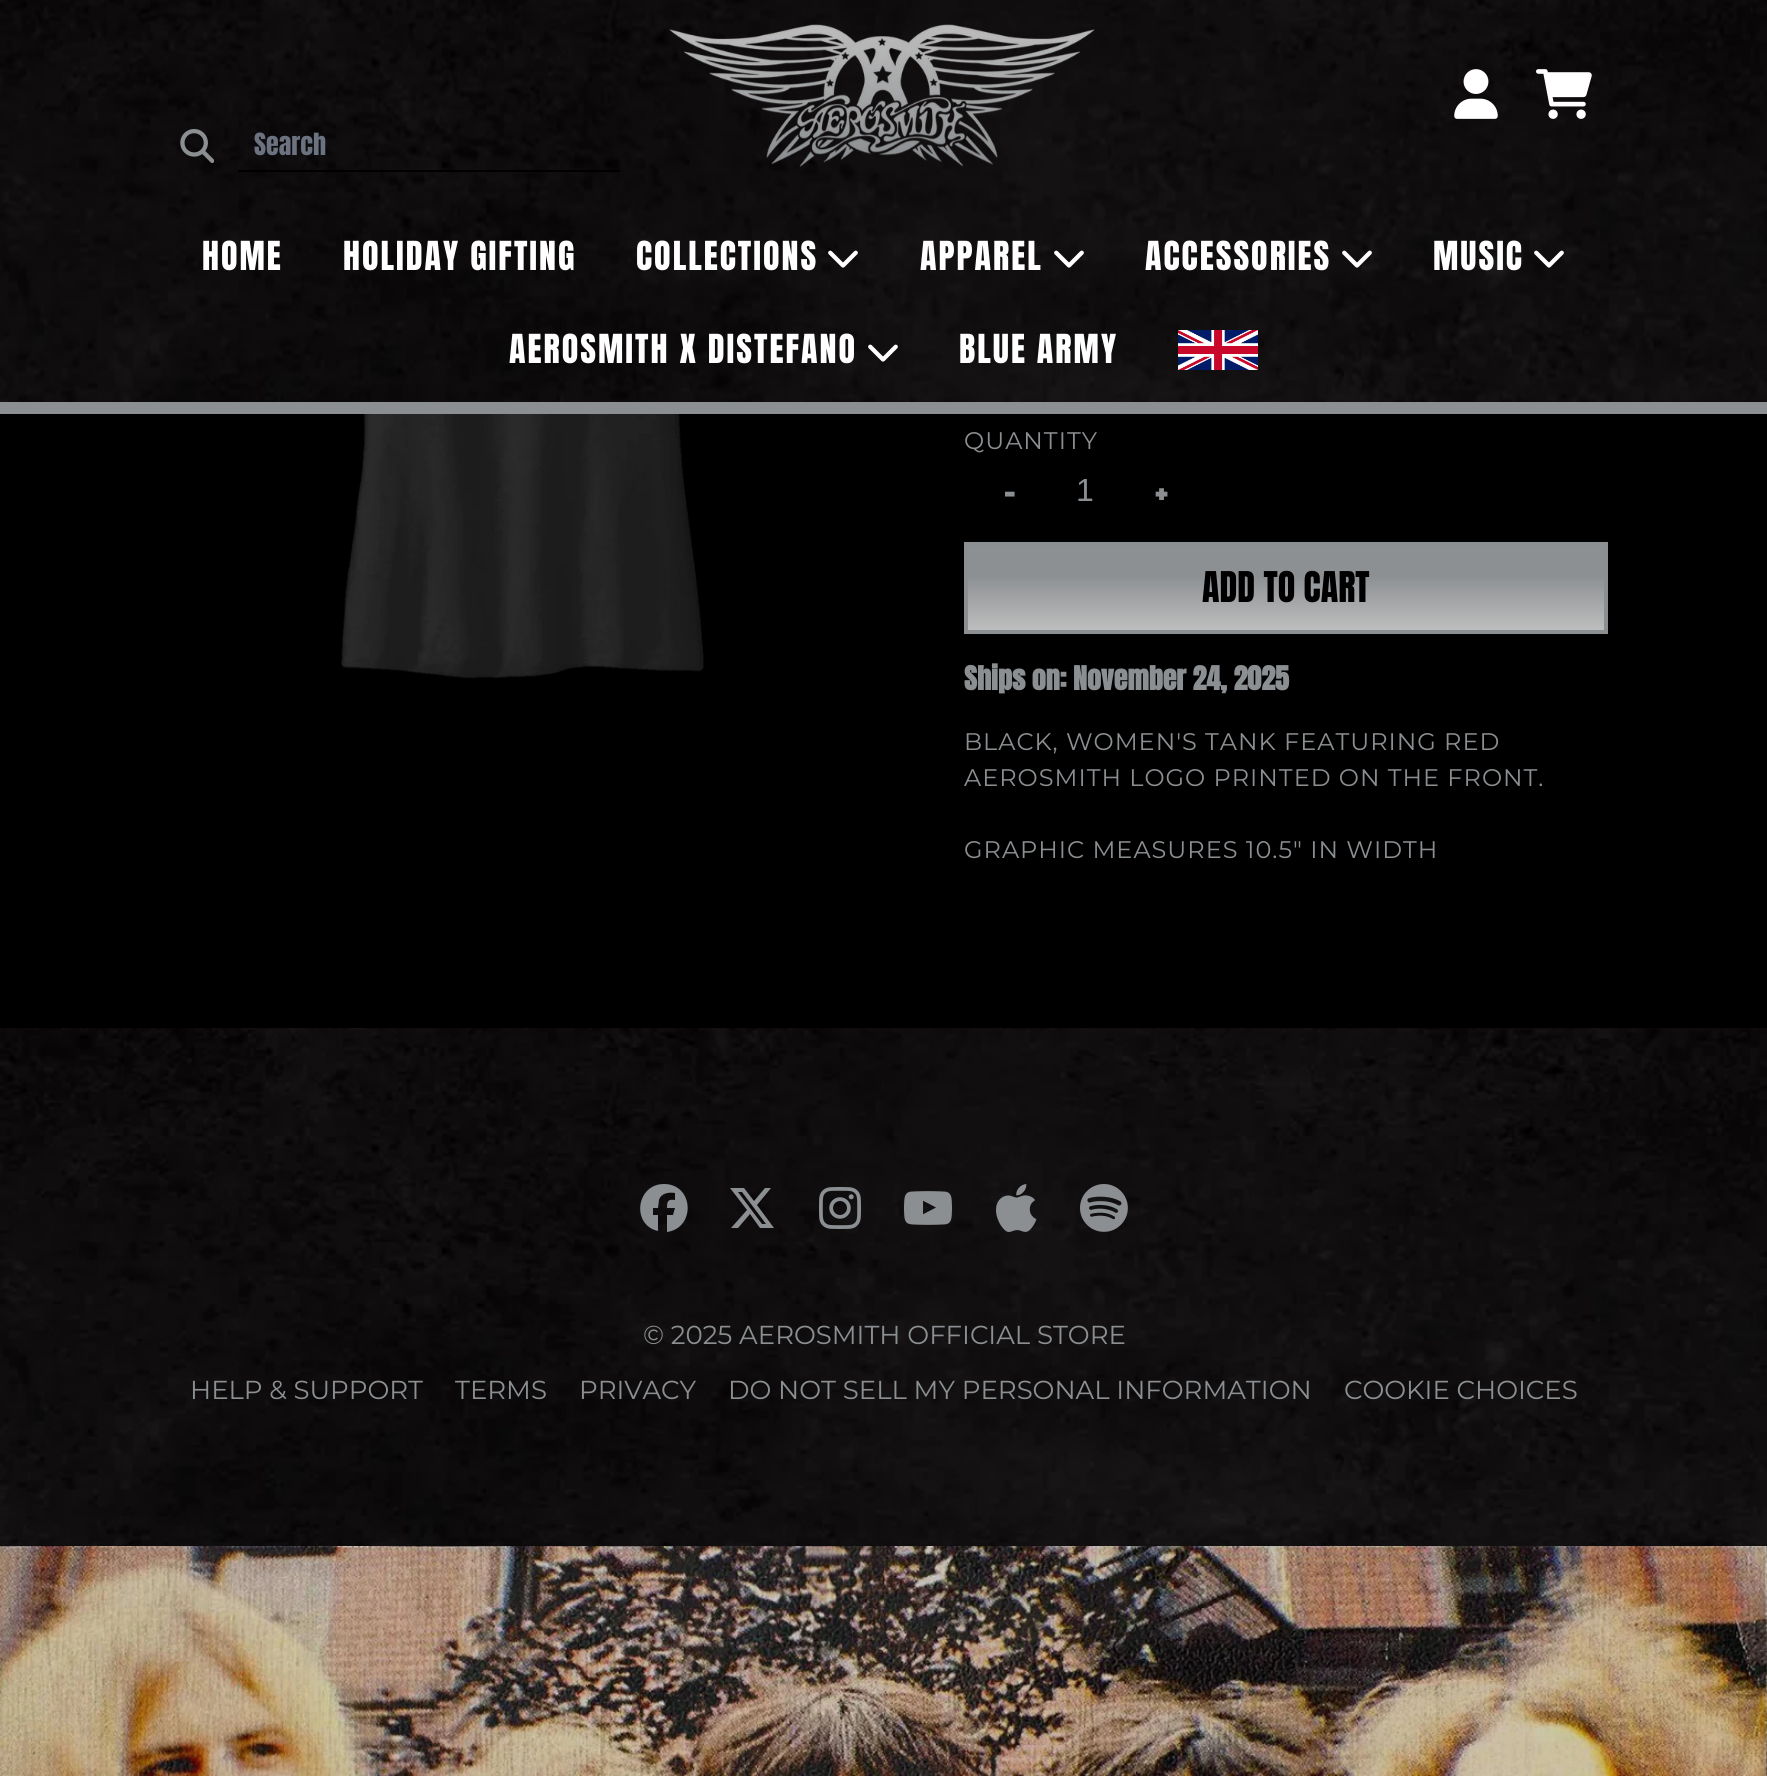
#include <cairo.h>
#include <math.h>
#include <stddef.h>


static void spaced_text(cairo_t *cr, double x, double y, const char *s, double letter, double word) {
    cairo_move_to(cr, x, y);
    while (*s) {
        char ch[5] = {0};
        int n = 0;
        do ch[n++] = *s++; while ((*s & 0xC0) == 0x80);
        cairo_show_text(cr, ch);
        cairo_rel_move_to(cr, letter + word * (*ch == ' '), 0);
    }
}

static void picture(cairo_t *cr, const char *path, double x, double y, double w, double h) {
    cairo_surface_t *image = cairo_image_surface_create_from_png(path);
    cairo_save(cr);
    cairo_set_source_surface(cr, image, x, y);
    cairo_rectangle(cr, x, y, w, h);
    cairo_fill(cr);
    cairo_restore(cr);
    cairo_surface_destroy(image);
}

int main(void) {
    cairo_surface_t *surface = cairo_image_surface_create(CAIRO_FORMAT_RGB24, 1767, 1776);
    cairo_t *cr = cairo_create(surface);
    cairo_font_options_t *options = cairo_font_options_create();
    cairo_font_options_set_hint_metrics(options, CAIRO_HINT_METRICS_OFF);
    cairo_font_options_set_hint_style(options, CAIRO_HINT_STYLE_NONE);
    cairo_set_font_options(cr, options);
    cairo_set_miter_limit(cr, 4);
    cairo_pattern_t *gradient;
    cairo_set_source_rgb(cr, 0, 0, 0);
    cairo_paint(cr);
    picture(cr, "img12.png", 341, 399, 363, 280);
    cairo_set_source_rgb(cr, 0.545, 0.561, 0.573);
    cairo_rectangle(cr, 0, 402, 1767, 12);
    cairo_fill(cr);
    picture(cr, "img1.png", 0, 0, 1767, 402);
    picture(cr, "img2.png", 669, 24, 426, 143);
    picture(cr, "img3.png", 1454, 69, 44, 50);
    picture(cr, "img4.png", 1536, 69, 56, 50);
    picture(cr, "img5.png", 180, 129, 34, 34);
    cairo_set_source_rgb(cr, 0, 0, 0);
    cairo_rectangle(cr, 238, 170, 382, 2);
    cairo_fill(cr);
    cairo_select_font_face(cr, "Anton", CAIRO_FONT_SLANT_NORMAL, CAIRO_FONT_WEIGHT_NORMAL);
    cairo_set_font_size(cr, 26);
    cairo_set_source_rgb(cr, 0.42, 0.447, 0.502);
    cairo_move_to(cr, 254, 155);
    cairo_show_text(cr, "Search");
    cairo_set_font_size(cr, 34);
    cairo_set_source_rgb(cr, 1, 1, 1);
    spaced_text(cr, 202, 270, "HOME", 2, 0);
    spaced_text(cr, 343, 270, "HOLIDAY GIFTING", 2, 0);
    spaced_text(cr, 636, 270, "COLLECTIONS", 2, 0);
    picture(cr, "img6.png", 828, 250, 30, 18);
    spaced_text(cr, 920, 270, "APPAREL", 2, 0);
    picture(cr, "img7.png", 1054, 250, 30, 18);
    spaced_text(cr, 1145, 270, "ACCESSORIES", 2, 0);
    picture(cr, "img8.png", 1342, 250, 30, 18);
    spaced_text(cr, 1433, 270, "MUSIC", 2, 0);
    picture(cr, "img9.png", 1534, 250, 30, 18);
    spaced_text(cr, 509, 363, "AEROSMITH X DISTEFANO", 2, 0);
    picture(cr, "img10.png", 868, 344, 30, 18);
    spaced_text(cr, 959, 363, "BLUE ARMY", 2, 0);
    picture(cr, "img11.png", 1178, 330, 80, 40);
    cairo_select_font_face(cr, "Montserrat", CAIRO_FONT_SLANT_NORMAL, CAIRO_FONT_WEIGHT_NORMAL);
    cairo_set_font_size(cr, 24);
    cairo_set_source_rgb(cr, 0.545, 0.561, 0.573);
    spaced_text(cr, 964, 449, "QUANTITY", 1, 0);
    cairo_select_font_face(cr, "Anton", CAIRO_FONT_SLANT_NORMAL, CAIRO_FONT_WEIGHT_BOLD);
    cairo_set_font_size(cr, 34);
    cairo_move_to(cr, 1004, 505);
    cairo_show_text(cr, "-");
    cairo_select_font_face(cr, "Liberation Sans", CAIRO_FONT_SLANT_NORMAL, CAIRO_FONT_WEIGHT_NORMAL);
    cairo_set_font_size(cr, 32);
    cairo_move_to(cr, 1076, 501);
    cairo_show_text(cr, "1");
    cairo_select_font_face(cr, "Anton", CAIRO_FONT_SLANT_NORMAL, CAIRO_FONT_WEIGHT_BOLD);
    cairo_set_font_size(cr, 34);
    cairo_move_to(cr, 1155, 505);
    cairo_show_text(cr, "+");
    gradient = cairo_pattern_create_linear(1286, 630, 1286, 546);
    cairo_pattern_add_color_stop_rgba(gradient, 0.01, 0.741, 0.741, 0.741, 1);
    cairo_pattern_add_color_stop_rgba(gradient, 0.64, 0.553, 0.565, 0.576, 1);
    cairo_set_source(cr, gradient);
    cairo_pattern_destroy(gradient);
    cairo_rectangle(cr, 968, 546, 636, 84);
    cairo_fill(cr);
    cairo_rectangle(cr, 966, 544, 640, 88);
    cairo_set_source_rgb(cr, 0.545, 0.561, 0.573);
    cairo_set_line_width(cr, 4);
    cairo_stroke(cr);
    cairo_select_font_face(cr, "Anton", CAIRO_FONT_SLANT_NORMAL, CAIRO_FONT_WEIGHT_NORMAL);
    cairo_set_font_size(cr, 36);
    cairo_set_source_rgb(cr, 0, 0, 0);
    cairo_move_to(cr, 1202, 602);
    cairo_show_text(cr, "ADD TO CART");
    cairo_select_font_face(cr, "Anton", CAIRO_FONT_SLANT_NORMAL, CAIRO_FONT_WEIGHT_BOLD);
    cairo_set_font_size(cr, 28);
    cairo_set_source_rgb(cr, 0.545, 0.561, 0.573);
    cairo_move_to(cr, 964, 690);
    cairo_show_text(cr, "Ships on: November 24, 2025");
    cairo_select_font_face(cr, "Montserrat", CAIRO_FONT_SLANT_NORMAL, CAIRO_FONT_WEIGHT_NORMAL);
    cairo_set_font_size(cr, 24);
    spaced_text(cr, 964, 750, "BLACK, WOMEN'S TANK FEATURING RED", 1, 0);
    spaced_text(cr, 964, 786, "AEROSMITH LOGO PRINTED ON THE FRONT.", 1, 0);
    spaced_text(cr, 964, 858, "GRAPHIC MEASURES 10.5\" IN WIDTH", 1, 0);
    picture(cr, "img13.png", 0, 1028, 1767, 518);
    cairo_new_path(cr);
    cairo_move_to(cr, 664, 1184);
    cairo_curve_to(cr, 636, 1184, 631, 1225, 658, 1231);
    cairo_line_to(cr, 658, 1215);
    cairo_line_to(cr, 653, 1215);
    cairo_line_to(cr, 653, 1208);
    cairo_line_to(cr, 658, 1208);
    cairo_line_to(cr, 659, 1200);
    cairo_curve_to(cr, 661, 1193, 669, 1192, 675, 1193);
    cairo_line_to(cr, 675, 1200);
    cairo_curve_to(cr, 668, 1199, 667, 1201, 667, 1208);
    cairo_line_to(cr, 675, 1208);
    cairo_line_to(cr, 673, 1215);
    cairo_line_to(cr, 667, 1215);
    cairo_line_to(cr, 667, 1232);
    cairo_curve_to(cr, 696, 1228, 694, 1184, 664, 1184);
    cairo_close_path(cr);
    cairo_fill(cr);
    cairo_new_path(cr);
    cairo_move_to(cr, 765, 1188);
    cairo_line_to(cr, 771, 1188);
    cairo_line_to(cr, 757, 1205);
    cairo_line_to(cr, 774, 1228);
    cairo_line_to(cr, 760, 1228);
    cairo_line_to(cr, 750, 1214);
    cairo_line_to(cr, 738, 1228);
    cairo_line_to(cr, 731, 1228);
    cairo_line_to(cr, 747, 1210);
    cairo_line_to(cr, 730, 1188);
    cairo_line_to(cr, 744, 1188);
    cairo_line_to(cr, 754, 1201);
    cairo_close_path(cr);
    cairo_move_to(cr, 762, 1224);
    cairo_line_to(cr, 766, 1224);
    cairo_line_to(cr, 742, 1192);
    cairo_line_to(cr, 738, 1192);
    cairo_close_path(cr);
    cairo_fill(cr);
    picture(cr, "img14.png", 819, 1187, 42, 42);
    picture(cr, "img15.png", 904, 1191, 48, 34);
    picture(cr, "img16.png", 996, 1184, 41, 48);
    picture(cr, "img17.png", 1080, 1184, 48, 48);
    cairo_set_font_size(cr, 26);
    cairo_move_to(cr, 643, 1344);
    cairo_show_text(cr, "© 2025 AEROSMITH OFFICIAL STORE");
    cairo_move_to(cr, 190, 1399);
    cairo_show_text(cr, "HELP & SUPPORT");
    cairo_move_to(cr, 455, 1399);
    cairo_show_text(cr, "TERMS");
    cairo_move_to(cr, 579, 1399);
    cairo_show_text(cr, "PRIVACY");
    cairo_move_to(cr, 728, 1399);
    cairo_show_text(cr, "DO NOT SELL MY PERSONAL INFORMATION");
    cairo_move_to(cr, 1344, 1399);
    cairo_show_text(cr, "COOKIE CHOICES");
    picture(cr, "img18.png", 0, 1546, 1767, 230);
    cairo_surface_write_to_png(surface, "page.png");
    cairo_font_options_destroy(options);
    cairo_destroy(cr);
    cairo_surface_destroy(surface);
    return 0;
}
